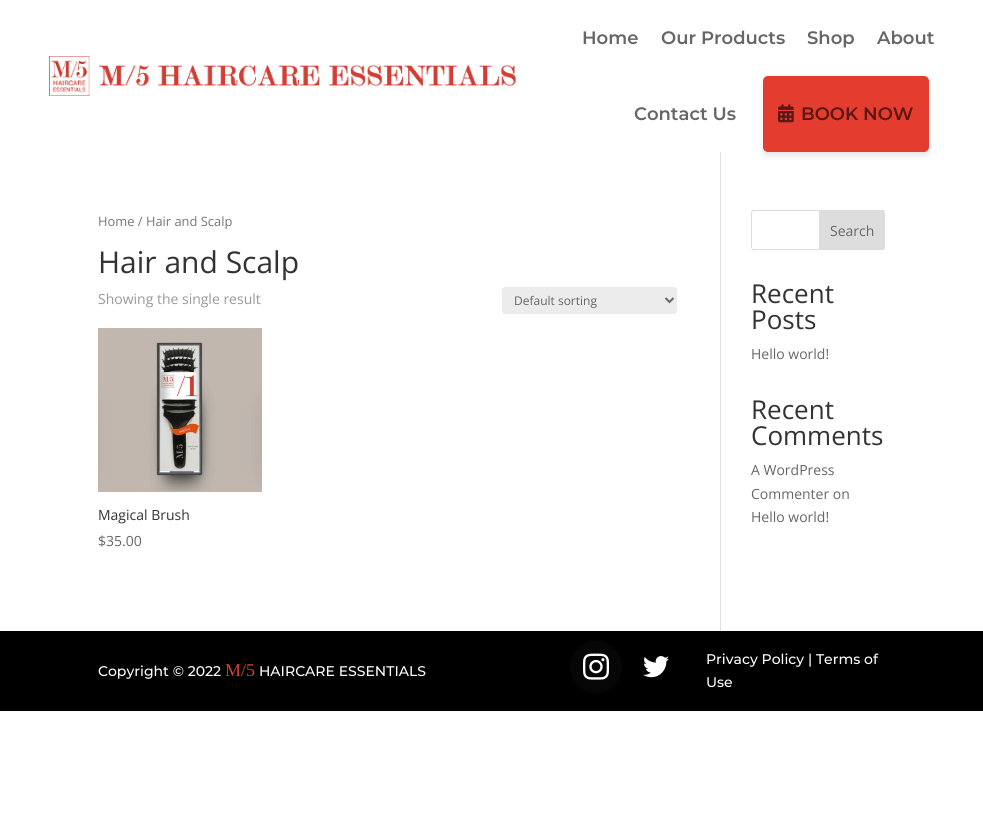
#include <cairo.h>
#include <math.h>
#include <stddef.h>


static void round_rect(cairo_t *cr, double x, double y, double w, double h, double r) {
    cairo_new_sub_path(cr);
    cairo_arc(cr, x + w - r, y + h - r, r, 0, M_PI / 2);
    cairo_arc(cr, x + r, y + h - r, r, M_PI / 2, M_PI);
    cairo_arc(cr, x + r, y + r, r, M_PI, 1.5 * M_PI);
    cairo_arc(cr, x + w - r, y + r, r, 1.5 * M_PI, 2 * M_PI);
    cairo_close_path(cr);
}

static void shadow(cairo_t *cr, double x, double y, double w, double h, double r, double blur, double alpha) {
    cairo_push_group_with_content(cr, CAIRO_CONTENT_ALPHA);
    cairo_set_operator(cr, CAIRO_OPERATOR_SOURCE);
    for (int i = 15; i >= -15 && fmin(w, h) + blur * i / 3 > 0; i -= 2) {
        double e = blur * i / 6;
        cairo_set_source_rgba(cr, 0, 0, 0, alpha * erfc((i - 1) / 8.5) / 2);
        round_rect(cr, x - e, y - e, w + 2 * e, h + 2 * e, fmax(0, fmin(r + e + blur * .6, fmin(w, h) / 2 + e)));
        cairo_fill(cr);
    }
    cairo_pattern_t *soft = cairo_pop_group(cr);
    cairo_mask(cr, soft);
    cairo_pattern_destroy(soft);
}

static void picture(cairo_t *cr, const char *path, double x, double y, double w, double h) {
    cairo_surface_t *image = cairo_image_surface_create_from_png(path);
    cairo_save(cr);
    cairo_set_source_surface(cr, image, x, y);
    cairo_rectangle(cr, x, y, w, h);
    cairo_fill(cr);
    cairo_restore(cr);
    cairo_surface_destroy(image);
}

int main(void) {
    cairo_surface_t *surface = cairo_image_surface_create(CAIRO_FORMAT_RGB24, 983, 813);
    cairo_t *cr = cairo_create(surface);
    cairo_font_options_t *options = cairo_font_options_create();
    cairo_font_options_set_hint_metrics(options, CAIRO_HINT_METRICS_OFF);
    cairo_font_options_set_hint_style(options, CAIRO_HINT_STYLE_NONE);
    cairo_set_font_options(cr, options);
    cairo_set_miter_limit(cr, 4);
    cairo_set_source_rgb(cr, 1, 1, 1);
    cairo_paint(cr);
    picture(cr, "img1.png", 49, 56, 468, 40);
    cairo_select_font_face(cr, "Montserrat SemiBold", CAIRO_FONT_SLANT_NORMAL, CAIRO_FONT_WEIGHT_NORMAL);
    cairo_set_font_size(cr, 18);
    cairo_set_source_rgb(cr, 0.4, 0.4, 0.4);
    cairo_move_to(cr, 582, 44);
    cairo_show_text(cr, "Home");
    cairo_move_to(cr, 661, 44);
    cairo_show_text(cr, "Our Products");
    cairo_move_to(cr, 807, 44);
    cairo_show_text(cr, "Shop");
    cairo_move_to(cr, 877, 44);
    cairo_show_text(cr, "About");
    cairo_move_to(cr, 634, 120);
    cairo_show_text(cr, "Contact Us");
    cairo_set_source_rgb(cr, 0, 0, 0);
    shadow(cr, 763, 80, 166, 76, 5, 3, 0.1);
    cairo_set_source_rgb(cr, 0.894, 0.235, 0.184);
    round_rect(cr, 763, 76, 166, 76, 5);
    cairo_fill(cr);
    picture(cr, "img2.png", 778, 104, 16, 19);
    cairo_set_source_rgb(cr, 0.357, 0.094, 0.075);
    cairo_move_to(cr, 801, 120);
    cairo_show_text(cr, "BOOK NOW");
    cairo_set_source_rgb(cr, 0.886, 0.886, 0.886);
    cairo_rectangle(cr, 720, 152, 1, 479);
    cairo_fill(cr);
    cairo_select_font_face(cr, "Open Sans", CAIRO_FONT_SLANT_NORMAL, CAIRO_FONT_WEIGHT_NORMAL);
    cairo_set_font_size(cr, 12.9);
    cairo_set_source_rgb(cr, 0.463, 0.463, 0.463);
    cairo_move_to(cr, 98, 226);
    cairo_show_text(cr, "Home / Hair and Scalp");
    cairo_set_font_size(cr, 30);
    cairo_set_source_rgb(cr, 0.2, 0.2, 0.2);
    cairo_move_to(cr, 98, 273);
    cairo_show_text(cr, "Hair and Scalp");
    cairo_set_font_size(cr, 14);
    cairo_set_source_rgb(cr, 0.6, 0.6, 0.6);
    cairo_move_to(cr, 98, 304);
    cairo_show_text(cr, "Showing the single result");
    cairo_set_source_rgb(cr, 0.925, 0.925, 0.925);
    round_rect(cr, 502, 287, 175, 27, 3);
    cairo_fill(cr);
    cairo_new_path(cr);
    cairo_move_to(cr, 665.5, 298);
    cairo_line_to(cr, 669.5, 302);
    cairo_line_to(cr, 673.5, 298);
    cairo_set_source_rgb(cr, 0.4, 0.4, 0.4);
    cairo_stroke(cr);
    cairo_set_font_size(cr, 12);
    cairo_move_to(cr, 514, 305);
    cairo_show_text(cr, "Default sorting");
    picture(cr, "img3.png", 98, 328, 164, 164);
    cairo_set_font_size(cr, 14);
    cairo_set_source_rgb(cr, 0.2, 0.2, 0.2);
    cairo_move_to(cr, 98, 520);
    cairo_show_text(cr, "Magical Brush");
    cairo_set_source_rgb(cr, 0.4, 0.4, 0.4);
    cairo_move_to(cr, 98, 546);
    cairo_show_text(cr, "$35.00");
    round_rect(cr, 751.5, 210.5, 133, 39, 2.5);
    cairo_set_source_rgb(cr, 0.867, 0.867, 0.867);
    cairo_set_line_width(cr, 1);
    cairo_stroke(cr);
    cairo_new_path(cr);
    cairo_move_to(cr, 819.5, 210.5);
    cairo_line_to(cr, 882, 210.5);
    cairo_curve_to(cr, 883.5, 210.5, 884.5, 211.5, 884.5, 213);
    cairo_line_to(cr, 884.5, 247);
    cairo_curve_to(cr, 884.5, 248.5, 883.5, 249.5, 882, 249.5);
    cairo_line_to(cr, 819.5, 249.5);
    cairo_close_path(cr);
    cairo_fill_preserve(cr);
    cairo_stroke(cr);
    cairo_set_source_rgb(cr, 0.4, 0.4, 0.4);
    cairo_move_to(cr, 830, 236);
    cairo_show_text(cr, "Search");
    cairo_set_font_size(cr, 26);
    cairo_set_source_rgb(cr, 0.2, 0.2, 0.2);
    cairo_move_to(cr, 751, 303);
    cairo_show_text(cr, "Recent");
    cairo_move_to(cr, 751, 329);
    cairo_show_text(cr, "Posts");
    cairo_set_font_size(cr, 14);
    cairo_set_source_rgb(cr, 0.4, 0.4, 0.4);
    cairo_move_to(cr, 751, 359);
    cairo_show_text(cr, "Hello world!");
    cairo_set_font_size(cr, 26);
    cairo_set_source_rgb(cr, 0.2, 0.2, 0.2);
    cairo_move_to(cr, 751, 419);
    cairo_show_text(cr, "Recent");
    cairo_move_to(cr, 751, 445);
    cairo_show_text(cr, "Comments");
    cairo_set_font_size(cr, 14);
    cairo_set_source_rgb(cr, 0.4, 0.4, 0.4);
    cairo_move_to(cr, 751, 475);
    cairo_show_text(cr, "A WordPress");
    cairo_move_to(cr, 751, 499);
    cairo_show_text(cr, "Commenter on");
    cairo_move_to(cr, 751, 522);
    cairo_show_text(cr, "Hello world!");
    cairo_set_source_rgb(cr, 0, 0, 0);
    cairo_rectangle(cr, 0, 631, 983, 80);
    cairo_fill(cr);
    cairo_select_font_face(cr, "Montserrat Medium", CAIRO_FONT_SLANT_NORMAL, CAIRO_FONT_WEIGHT_NORMAL);
    cairo_set_source_rgb(cr, 1, 1, 1);
    cairo_move_to(cr, 98, 676);
    cairo_show_text(cr, "Copyright © 2022");
    cairo_select_font_face(cr, "Liberation Serif", CAIRO_FONT_SLANT_NORMAL, CAIRO_FONT_WEIGHT_NORMAL);
    cairo_set_font_size(cr, 18);
    cairo_set_source_rgb(cr, 0.831, 0.247, 0.204);
    cairo_move_to(cr, 225, 676);
    cairo_show_text(cr, "M/5");
    cairo_select_font_face(cr, "Montserrat Medium", CAIRO_FONT_SLANT_NORMAL, CAIRO_FONT_WEIGHT_NORMAL);
    cairo_set_font_size(cr, 14);
    cairo_set_source_rgb(cr, 1, 1, 1);
    cairo_move_to(cr, 259, 676);
    cairo_show_text(cr, "HAIRCARE ESSENTIALS");
    cairo_set_source_rgb(cr, 0.027, 0.027, 0.027);
    cairo_new_path(cr);
    cairo_arc(cr, 596, 667, 26, 0, 2 * M_PI);
    cairo_fill(cr);
    picture(cr, "img4.png", 583, 653, 26, 27);
    picture(cr, "img5.png", 643, 656, 26, 22);
    cairo_set_source_rgb(cr, 1, 1, 1);
    cairo_move_to(cr, 706, 664);
    cairo_show_text(cr, "Privacy Policy | Terms of");
    cairo_move_to(cr, 706, 687);
    cairo_show_text(cr, "Use");
    cairo_surface_write_to_png(surface, "page.png");
    cairo_font_options_destroy(options);
    cairo_destroy(cr);
    cairo_surface_destroy(surface);
    return 0;
}
